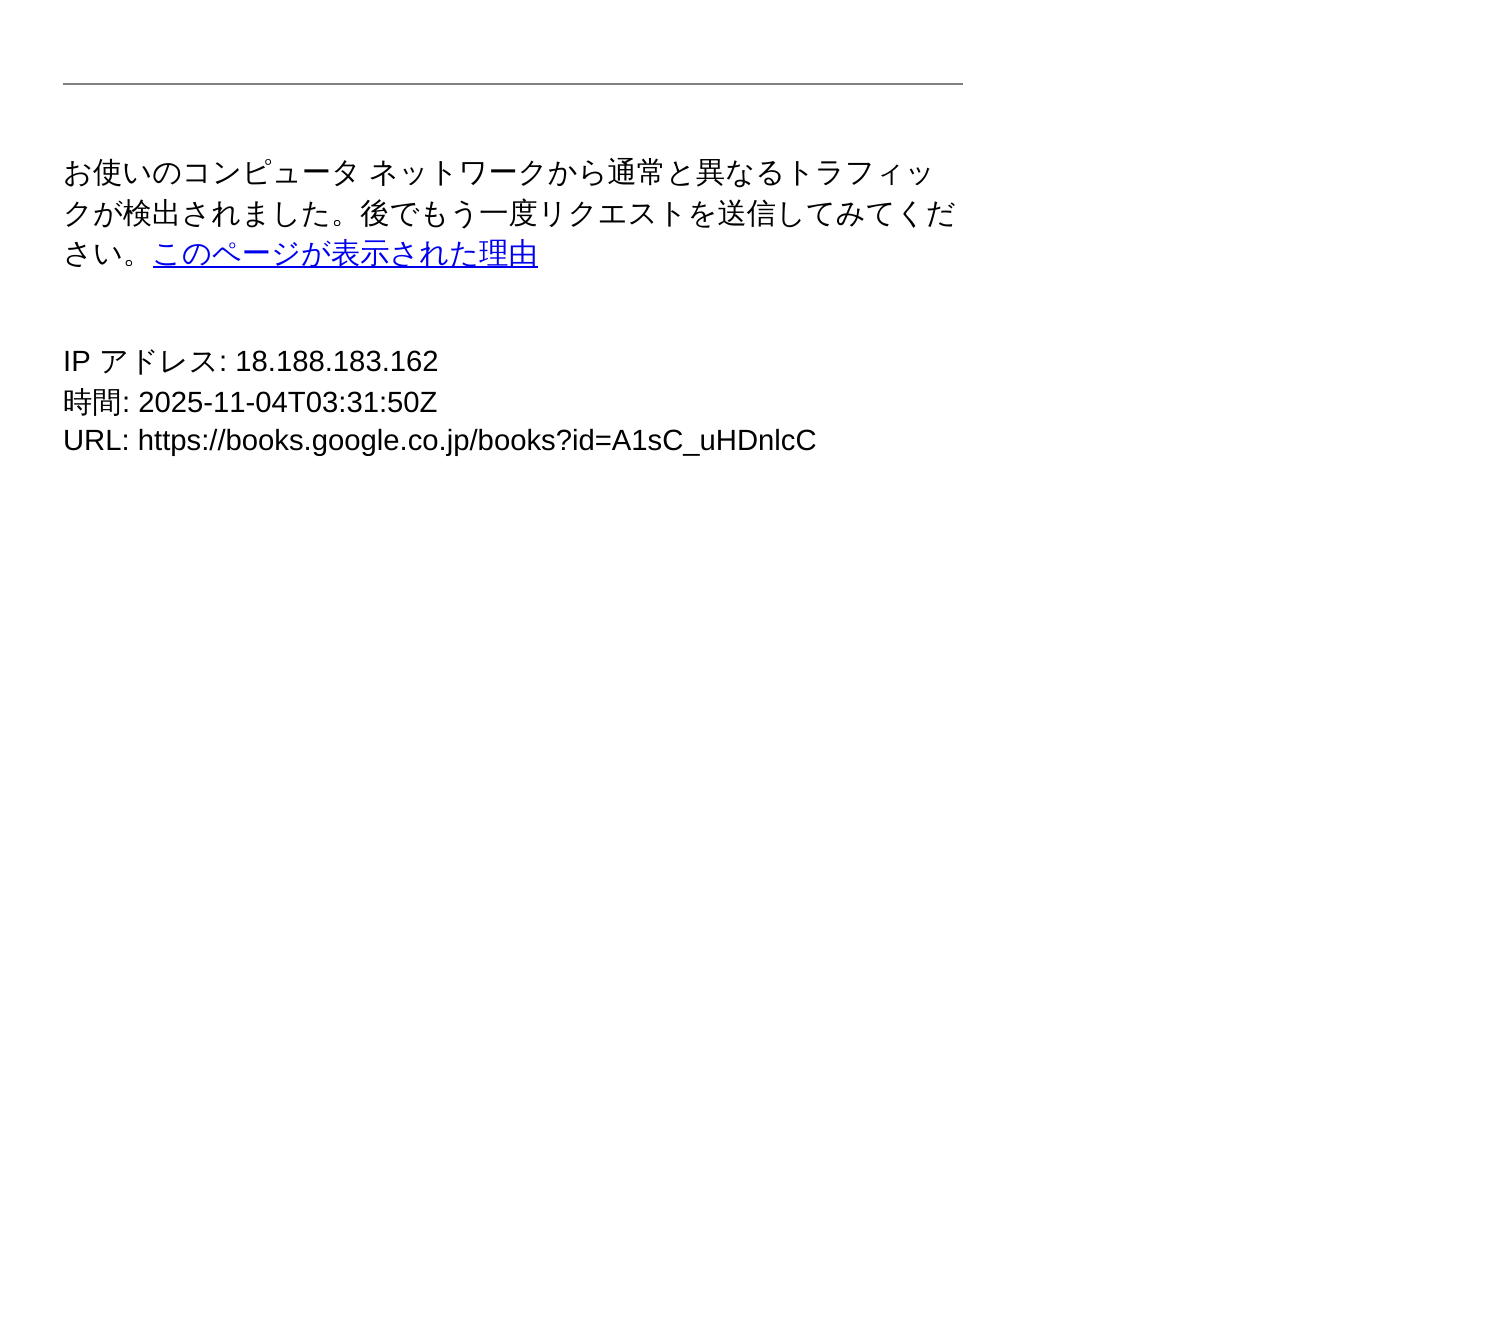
#include <cairo.h>
#include <math.h>
#include <stddef.h>


static void spaced_text(cairo_t *cr, double x, double y, const char *s, double letter, double word) {
    cairo_move_to(cr, x, y);
    while (*s) {
        char ch[5] = {0};
        int n = 0;
        do ch[n++] = *s++; while ((*s & 0xC0) == 0x80);
        cairo_show_text(cr, ch);
        cairo_rel_move_to(cr, letter + word * (*ch == ' '), 0);
    }
}

int main(void) {
    cairo_surface_t *surface = cairo_image_surface_create(CAIRO_FORMAT_RGB24, 1508, 1319);
    cairo_t *cr = cairo_create(surface);
    cairo_font_options_t *options = cairo_font_options_create();
    cairo_font_options_set_hint_metrics(options, CAIRO_HINT_METRICS_OFF);
    cairo_font_options_set_hint_style(options, CAIRO_HINT_STYLE_NONE);
    cairo_set_font_options(cr, options);
    cairo_set_miter_limit(cr, 4);
    cairo_set_source_rgb(cr, 1, 1, 1);
    cairo_paint(cr);
    cairo_set_source_rgb(cr, 0.502, 0.502, 0.502);
    cairo_rectangle(cr, 63, 83, 900, 2);
    cairo_fill(cr);
    cairo_select_font_face(cr, "WenQuanYi Zen Hei Medium", CAIRO_FONT_SLANT_NORMAL, CAIRO_FONT_WEIGHT_NORMAL);
    cairo_set_font_size(cr, 29.25);
    cairo_set_source_rgb(cr, 0, 0, 0);
    spaced_text(cr, 63, 182, "お使いのコンピュータ ネットワークから通常と異なるトラフィッ", 0, -1);
    cairo_move_to(cr, 63, 223);
    cairo_show_text(cr, "クが検出されました。後でもう一度リクエストを送信してみてくだ");
    cairo_move_to(cr, 63, 263);
    cairo_show_text(cr, "さい。");
    cairo_set_source_rgb(cr, 0, 0, 0.933);
    cairo_rectangle(cr, 153, 266, 385, 2);
    cairo_fill(cr);
    cairo_move_to(cr, 152, 263);
    cairo_show_text(cr, "このページが表示された理由");
    cairo_select_font_face(cr, "Liberation Sans", CAIRO_FONT_SLANT_NORMAL, CAIRO_FONT_WEIGHT_NORMAL);
    cairo_set_source_rgb(cr, 0, 0, 0);
    cairo_move_to(cr, 63, 371);
    cairo_show_text(cr, "IP");
    cairo_select_font_face(cr, "WenQuanYi Zen Hei Medium", CAIRO_FONT_SLANT_NORMAL, CAIRO_FONT_WEIGHT_NORMAL);
    cairo_move_to(cr, 99, 371);
    cairo_show_text(cr, "アドレス");
    cairo_select_font_face(cr, "Liberation Sans", CAIRO_FONT_SLANT_NORMAL, CAIRO_FONT_WEIGHT_NORMAL);
    cairo_move_to(cr, 219, 371);
    cairo_show_text(cr, ": 18.188.183.162");
    cairo_select_font_face(cr, "WenQuanYi Zen Hei Medium", CAIRO_FONT_SLANT_NORMAL, CAIRO_FONT_WEIGHT_NORMAL);
    cairo_move_to(cr, 63, 412);
    cairo_show_text(cr, "時間");
    cairo_select_font_face(cr, "Liberation Sans", CAIRO_FONT_SLANT_NORMAL, CAIRO_FONT_WEIGHT_NORMAL);
    cairo_move_to(cr, 122, 412);
    cairo_show_text(cr, ": 2025-11-04T03:31:50Z");
    cairo_move_to(cr, 63, 450);
    cairo_show_text(cr, "URL: https://books.google.co.jp/books?id=A1sC_uHDnlcC");
    cairo_surface_write_to_png(surface, "page.png");
    cairo_font_options_destroy(options);
    cairo_destroy(cr);
    cairo_surface_destroy(surface);
    return 0;
}
